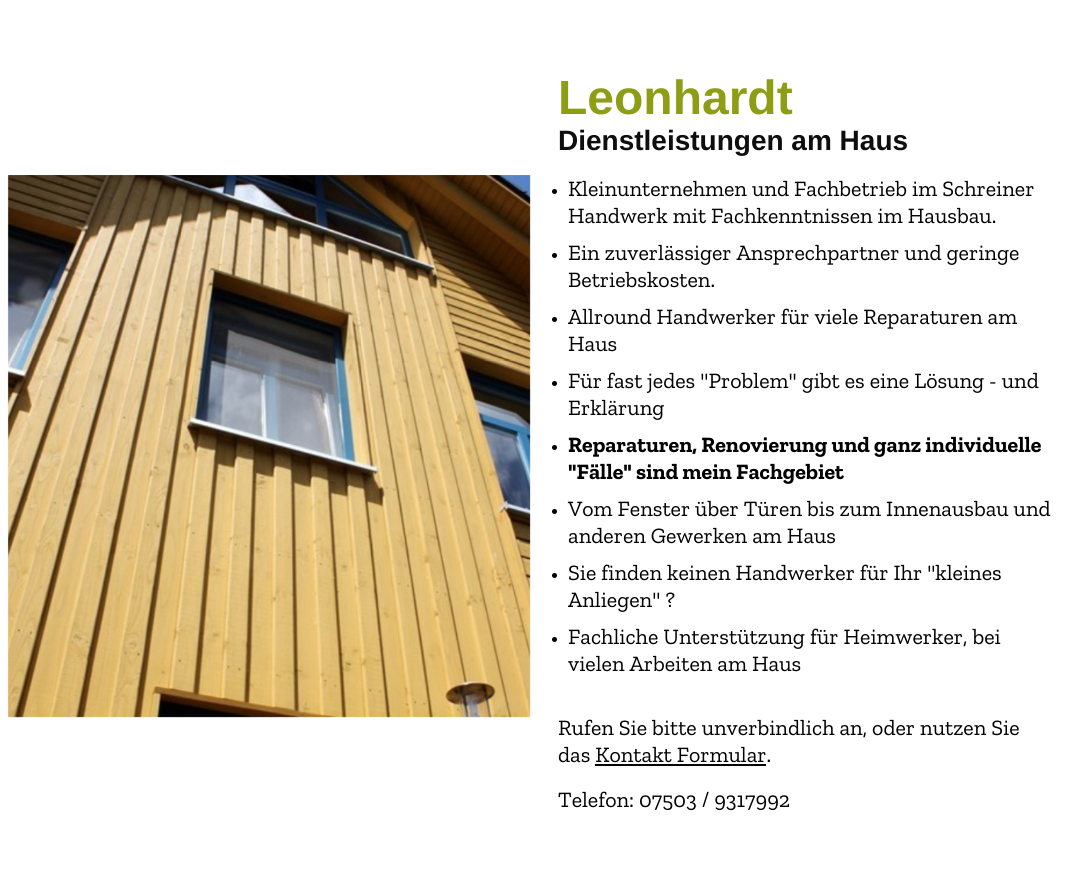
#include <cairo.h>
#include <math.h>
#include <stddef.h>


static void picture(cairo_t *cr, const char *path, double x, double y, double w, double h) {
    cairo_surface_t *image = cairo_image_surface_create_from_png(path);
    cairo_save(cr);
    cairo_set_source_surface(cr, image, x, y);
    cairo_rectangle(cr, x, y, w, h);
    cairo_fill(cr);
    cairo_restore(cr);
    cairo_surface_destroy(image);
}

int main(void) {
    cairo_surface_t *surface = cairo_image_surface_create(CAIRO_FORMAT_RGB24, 1075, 891);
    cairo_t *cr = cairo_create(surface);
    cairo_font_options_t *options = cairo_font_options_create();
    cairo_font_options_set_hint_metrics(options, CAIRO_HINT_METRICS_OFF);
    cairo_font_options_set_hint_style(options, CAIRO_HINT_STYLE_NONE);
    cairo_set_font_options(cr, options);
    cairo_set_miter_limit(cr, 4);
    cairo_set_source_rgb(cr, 1, 1, 1);
    cairo_paint(cr);
    picture(cr, "img1.png", 7, 175, 524, 543);
    cairo_select_font_face(cr, "Liberation Sans", CAIRO_FONT_SLANT_NORMAL, CAIRO_FONT_WEIGHT_BOLD);
    cairo_set_font_size(cr, 48);
    cairo_set_source_rgb(cr, 0.553, 0.62, 0.082);
    cairo_move_to(cr, 558, 114);
    cairo_show_text(cr, "Leonhardt");
    cairo_set_font_size(cr, 28);
    cairo_set_source_rgb(cr, 0.051, 0.055, 0.051);
    cairo_move_to(cr, 558, 150);
    cairo_show_text(cr, "Dienstleistungen am Haus");
    cairo_set_source_rgb(cr, 0, 0, 0);
    cairo_new_path(cr);
    cairo_arc(cr, 554.5, 191.5, 2.5, 0, 2 * M_PI);
    cairo_fill(cr);
    cairo_select_font_face(cr, "Zilla Slab", CAIRO_FONT_SLANT_NORMAL, CAIRO_FONT_WEIGHT_NORMAL);
    cairo_set_font_size(cr, 22);
    cairo_move_to(cr, 568, 196);
    cairo_show_text(cr, "Kleinunternehmen und Fachbetrieb im Schreiner");
    cairo_move_to(cr, 568, 223);
    cairo_show_text(cr, "Handwerk mit Fachkenntnissen im Hausbau.");
    cairo_new_path(cr);
    cairo_arc(cr, 554.5, 255.5, 2.5, 0, 2 * M_PI);
    cairo_fill(cr);
    cairo_move_to(cr, 568, 260);
    cairo_show_text(cr, "Ein zuverlässiger Ansprechpartner und geringe");
    cairo_move_to(cr, 568, 287);
    cairo_show_text(cr, "Betriebskosten.");
    cairo_new_path(cr);
    cairo_arc(cr, 554.5, 319.5, 2.5, 0, 2 * M_PI);
    cairo_fill(cr);
    cairo_move_to(cr, 568, 324);
    cairo_show_text(cr, "Allround Handwerker für viele Reparaturen am");
    cairo_move_to(cr, 568, 351);
    cairo_show_text(cr, "Haus");
    cairo_new_path(cr);
    cairo_arc(cr, 554.5, 383.5, 2.5, 0, 2 * M_PI);
    cairo_fill(cr);
    cairo_move_to(cr, 568, 388);
    cairo_show_text(cr, "Für fast jedes \"Problem\" gibt es eine Lösung - und");
    cairo_move_to(cr, 568, 415);
    cairo_show_text(cr, "Erklärung");
    cairo_new_path(cr);
    cairo_arc(cr, 554.5, 447.5, 2.5, 0, 2 * M_PI);
    cairo_fill(cr);
    cairo_select_font_face(cr, "Zilla Slab", CAIRO_FONT_SLANT_NORMAL, CAIRO_FONT_WEIGHT_BOLD);
    cairo_move_to(cr, 568, 452);
    cairo_show_text(cr, "Reparaturen, Renovierung und ganz individuelle");
    cairo_move_to(cr, 568, 479);
    cairo_show_text(cr, "\"Fälle\" sind mein Fachgebiet");
    cairo_new_path(cr);
    cairo_arc(cr, 554.5, 511.5, 2.5, 0, 2 * M_PI);
    cairo_fill(cr);
    cairo_select_font_face(cr, "Zilla Slab", CAIRO_FONT_SLANT_NORMAL, CAIRO_FONT_WEIGHT_NORMAL);
    cairo_move_to(cr, 568, 516);
    cairo_show_text(cr, "Vom Fenster über Türen bis zum Innenausbau und");
    cairo_move_to(cr, 568, 543);
    cairo_show_text(cr, "anderen Gewerken am Haus");
    cairo_new_path(cr);
    cairo_arc(cr, 554.5, 575.5, 2.5, 0, 2 * M_PI);
    cairo_fill(cr);
    cairo_move_to(cr, 568, 580);
    cairo_show_text(cr, "Sie finden keinen Handwerker für Ihr \"kleines");
    cairo_move_to(cr, 568, 607);
    cairo_show_text(cr, "Anliegen\" ?");
    cairo_new_path(cr);
    cairo_arc(cr, 554.5, 639.5, 2.5, 0, 2 * M_PI);
    cairo_fill(cr);
    cairo_move_to(cr, 568, 644);
    cairo_show_text(cr, "Fachliche Unterstützung für Heimwerker, bei");
    cairo_move_to(cr, 568, 671);
    cairo_show_text(cr, "vielen Arbeiten am Haus");
    cairo_move_to(cr, 558, 735);
    cairo_show_text(cr, "Rufen Sie bitte unverbindlich an, oder nutzen Sie");
    cairo_move_to(cr, 558, 762);
    cairo_show_text(cr, "das Kontakt Formular.");
    cairo_rectangle(cr, 595, 764, 171, 2);
    cairo_fill(cr);
    cairo_move_to(cr, 558, 807);
    cairo_show_text(cr, "Telefon: 07503 / 9317992");
    cairo_surface_write_to_png(surface, "page.png");
    cairo_font_options_destroy(options);
    cairo_destroy(cr);
    cairo_surface_destroy(surface);
    return 0;
}
